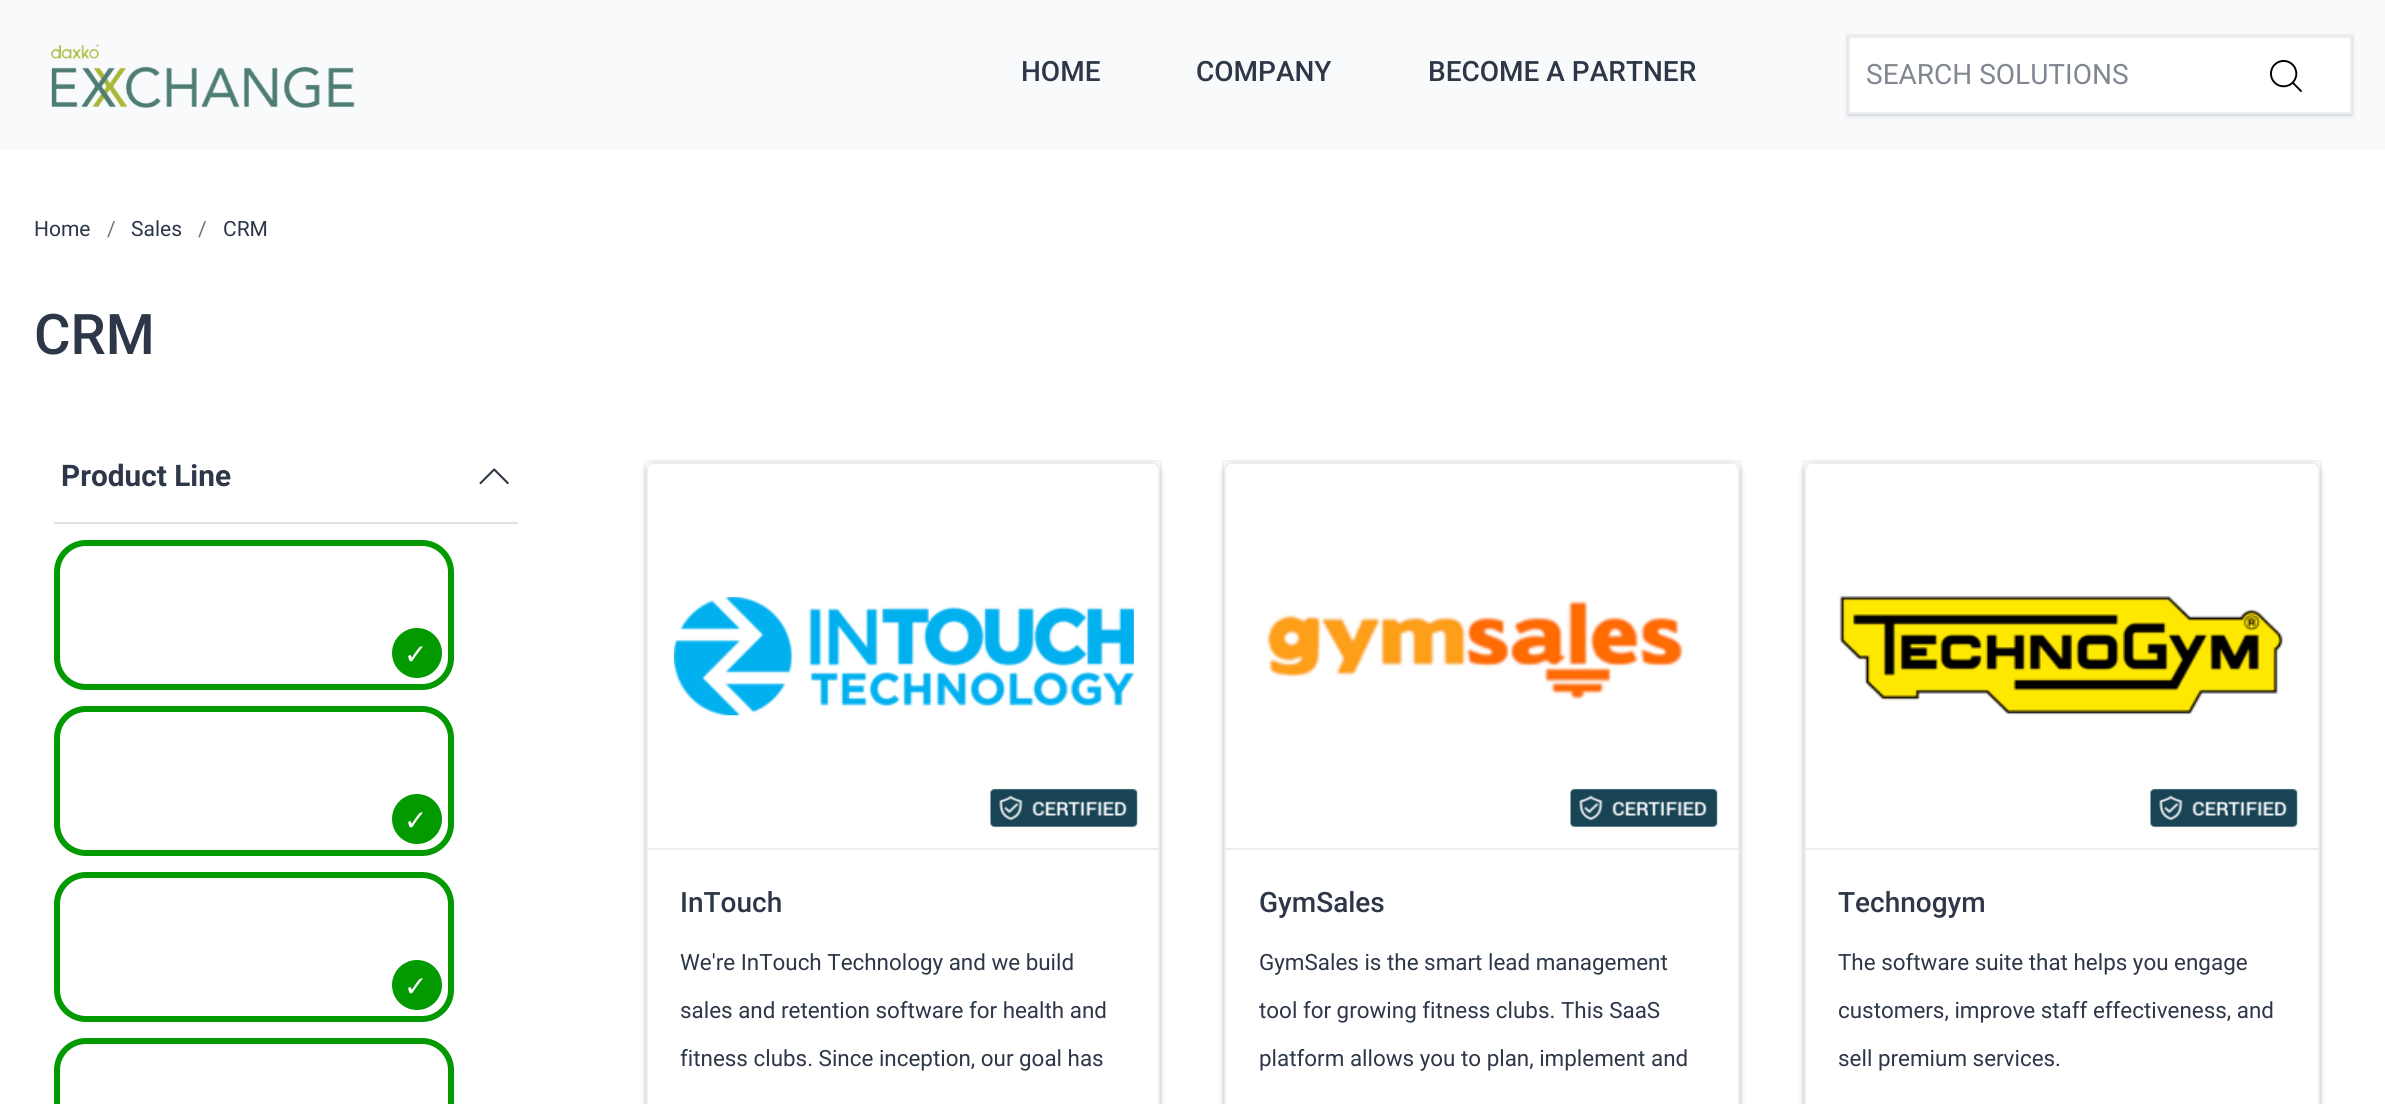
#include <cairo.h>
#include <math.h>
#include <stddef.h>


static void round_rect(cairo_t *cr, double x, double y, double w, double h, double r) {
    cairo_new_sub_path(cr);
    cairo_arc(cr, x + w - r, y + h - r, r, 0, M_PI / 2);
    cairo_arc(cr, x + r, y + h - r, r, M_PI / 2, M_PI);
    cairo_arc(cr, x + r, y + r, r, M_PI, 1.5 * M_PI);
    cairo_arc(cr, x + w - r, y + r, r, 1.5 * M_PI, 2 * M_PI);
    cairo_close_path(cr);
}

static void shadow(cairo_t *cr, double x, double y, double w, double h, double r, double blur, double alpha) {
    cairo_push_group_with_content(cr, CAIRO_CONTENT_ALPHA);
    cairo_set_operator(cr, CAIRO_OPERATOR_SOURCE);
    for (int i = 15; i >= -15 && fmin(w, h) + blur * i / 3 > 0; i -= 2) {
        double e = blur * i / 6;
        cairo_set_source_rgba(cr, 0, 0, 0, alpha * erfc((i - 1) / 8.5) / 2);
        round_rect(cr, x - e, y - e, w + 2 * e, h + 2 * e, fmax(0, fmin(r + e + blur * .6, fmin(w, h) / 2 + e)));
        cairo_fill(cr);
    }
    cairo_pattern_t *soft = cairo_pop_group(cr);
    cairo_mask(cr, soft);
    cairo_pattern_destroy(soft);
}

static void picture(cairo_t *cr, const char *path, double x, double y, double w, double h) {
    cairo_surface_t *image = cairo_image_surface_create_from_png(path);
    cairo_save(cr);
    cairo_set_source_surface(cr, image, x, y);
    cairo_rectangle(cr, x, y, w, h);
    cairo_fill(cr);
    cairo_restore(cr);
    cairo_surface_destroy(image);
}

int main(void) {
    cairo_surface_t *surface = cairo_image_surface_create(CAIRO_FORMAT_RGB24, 2385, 1104);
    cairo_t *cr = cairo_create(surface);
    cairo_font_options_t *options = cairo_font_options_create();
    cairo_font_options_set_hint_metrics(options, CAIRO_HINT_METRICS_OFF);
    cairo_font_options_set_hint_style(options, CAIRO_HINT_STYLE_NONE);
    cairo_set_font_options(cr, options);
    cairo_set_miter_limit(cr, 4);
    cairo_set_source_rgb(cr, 1, 1, 1);
    cairo_paint(cr);
    cairo_set_source_rgb(cr, 0.976, 0.98, 0.984);
    cairo_rectangle(cr, 0, 0, 2385, 150);
    cairo_fill(cr);
    picture(cr, "img1.png", 51, 43, 304, 65);
    cairo_select_font_face(cr, "Roboto Medium", CAIRO_FONT_SLANT_NORMAL, CAIRO_FONT_WEIGHT_NORMAL);
    cairo_set_font_size(cr, 28);
    cairo_set_source_rgb(cr, 0.176, 0.216, 0.282);
    cairo_move_to(cr, 1021, 81);
    cairo_show_text(cr, "HOME");
    cairo_move_to(cr, 1196, 81);
    cairo_show_text(cr, "COMPANY");
    cairo_move_to(cr, 1428, 81);
    cairo_show_text(cr, "BECOME A PARTNER");
    cairo_set_source_rgb(cr, 0.247, 0.247, 0.267);
    shadow(cr, 1848, 38, 504, 78, 0, 3, 0.15);
    cairo_rectangle(cr, 1847, 35, 506, 80);
    cairo_set_source_rgba(cr, 0.247, 0.247, 0.267, 0.05);
    cairo_stroke(cr);
    cairo_set_source_rgb(cr, 1, 1, 1);
    cairo_rectangle(cr, 1849, 37, 502, 76);
    cairo_fill_preserve(cr);
    cairo_set_source_rgb(cr, 0.925, 0.937, 0.945);
    cairo_stroke(cr);
    cairo_select_font_face(cr, "Roboto", CAIRO_FONT_SLANT_NORMAL, CAIRO_FONT_WEIGHT_NORMAL);
    cairo_set_source_rgb(cr, 0.506, 0.529, 0.569);
    cairo_move_to(cr, 1866, 84);
    cairo_show_text(cr, "SEARCH SOLUTIONS");
    picture(cr, "img2.png", 2270, 60, 32, 32);
    cairo_set_font_size(cr, 21);
    cairo_set_source_rgb(cr, 0.176, 0.216, 0.282);
    cairo_move_to(cr, 34, 236);
    cairo_show_text(cr, "Home");
    cairo_set_source_rgb(cr, 0.424, 0.459, 0.49);
    cairo_move_to(cr, 107, 236);
    cairo_show_text(cr, "/");
    cairo_set_source_rgb(cr, 0.176, 0.216, 0.282);
    cairo_move_to(cr, 131, 236);
    cairo_show_text(cr, "Sales");
    cairo_set_source_rgb(cr, 0.424, 0.459, 0.49);
    cairo_move_to(cr, 198, 236);
    cairo_show_text(cr, "/");
    cairo_set_source_rgb(cr, 0.176, 0.216, 0.282);
    cairo_move_to(cr, 223, 236);
    cairo_show_text(cr, "CRM");
    cairo_select_font_face(cr, "Roboto Medium", CAIRO_FONT_SLANT_NORMAL, CAIRO_FONT_WEIGHT_NORMAL);
    cairo_set_font_size(cr, 56);
    cairo_move_to(cr, 34, 354);
    cairo_show_text(cr, "CRM");
    cairo_set_source_rgb(cr, 0.886, 0.886, 0.886);
    cairo_rectangle(cr, 54, 522, 464, 2);
    cairo_fill(cr);
    cairo_select_font_face(cr, "Roboto", CAIRO_FONT_SLANT_NORMAL, CAIRO_FONT_WEIGHT_BOLD);
    cairo_set_font_size(cr, 29.75);
    cairo_set_source_rgb(cr, 0.176, 0.216, 0.282);
    cairo_move_to(cr, 61, 486);
    cairo_show_text(cr, "Product Line");
    picture(cr, "img3.png", 479, 468, 30, 17);
    round_rect(cr, 57, 543, 394, 144, 29);
    cairo_set_source_rgb(cr, 0.012, 0.6, 0);
    cairo_set_line_width(cr, 6);
    cairo_stroke(cr);
    cairo_arc(cr, 417, 653, 22, 0, 2 * M_PI);
    cairo_fill_preserve(cr);
    cairo_stroke(cr);
    cairo_select_font_face(cr, "DejaVu Sans", CAIRO_FONT_SLANT_NORMAL, CAIRO_FONT_WEIGHT_NORMAL);
    cairo_set_font_size(cr, 28);
    cairo_set_source_rgb(cr, 1, 1, 1);
    cairo_move_to(cr, 404, 664);
    cairo_show_text(cr, "✓");
    round_rect(cr, 57, 709, 394, 144, 29);
    cairo_set_source_rgb(cr, 0.012, 0.6, 0);
    cairo_stroke(cr);
    cairo_arc(cr, 417, 819, 22, 0, 2 * M_PI);
    cairo_fill_preserve(cr);
    cairo_stroke(cr);
    cairo_set_source_rgb(cr, 1, 1, 1);
    cairo_move_to(cr, 404, 830);
    cairo_show_text(cr, "✓");
    round_rect(cr, 57, 875, 394, 144, 29);
    cairo_set_source_rgb(cr, 0.012, 0.6, 0);
    cairo_stroke(cr);
    cairo_arc(cr, 417, 985, 22, 0, 2 * M_PI);
    cairo_fill_preserve(cr);
    cairo_stroke(cr);
    cairo_set_source_rgb(cr, 1, 1, 1);
    cairo_move_to(cr, 404, 996);
    cairo_show_text(cr, "✓");
    round_rect(cr, 57, 1041, 394, 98, 29);
    cairo_set_source_rgb(cr, 0.012, 0.6, 0);
    cairo_stroke(cr);
    cairo_save(cr);
    cairo_set_fill_rule(cr, CAIRO_FILL_RULE_EVEN_ODD);
    cairo_new_path(cr);
    cairo_move_to(cr, 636, 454);
    cairo_line_to(cr, 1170, 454);
    cairo_line_to(cr, 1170, 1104);
    cairo_line_to(cr, 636, 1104);
    cairo_close_path(cr);
    cairo_move_to(cr, 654, 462);
    cairo_line_to(cr, 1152, 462);
    cairo_curve_to(cr, 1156.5, 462, 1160, 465.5, 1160, 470);
    cairo_line_to(cr, 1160, 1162);
    cairo_curve_to(cr, 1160, 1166.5, 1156.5, 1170, 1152, 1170);
    cairo_line_to(cr, 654, 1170);
    cairo_curve_to(cr, 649.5, 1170, 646, 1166.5, 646, 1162);
    cairo_line_to(cr, 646, 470);
    cairo_curve_to(cr, 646, 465.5, 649.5, 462, 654, 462);
    cairo_close_path(cr);
    cairo_clip(cr);
    cairo_set_source_rgb(cr, 0.247, 0.247, 0.267);
    shadow(cr, 646, 464, 514, 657, 8, 3, 0.3);
    cairo_restore(cr);
    cairo_rectangle(cr, 645, 461, 516, 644);
    cairo_set_source_rgba(cr, 0.247, 0.247, 0.267, 0.05);
    cairo_set_line_width(cr, 2);
    cairo_stroke(cr);
    round_rect(cr, 647, 463, 512, 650, 7);
    cairo_set_source_rgb(cr, 0.925, 0.937, 0.945);
    cairo_stroke(cr);
    picture(cr, "img4.png", 673, 597, 461, 119);
    picture(cr, "img5.png", 990, 788, 148, 40);
    cairo_rectangle(cr, 648, 848, 510, 2);
    cairo_fill(cr);
    cairo_select_font_face(cr, "Roboto Medium", CAIRO_FONT_SLANT_NORMAL, CAIRO_FONT_WEIGHT_NORMAL);
    cairo_set_source_rgb(cr, 0.176, 0.216, 0.282);
    cairo_move_to(cr, 680, 912);
    cairo_show_text(cr, "InTouch");
    cairo_select_font_face(cr, "Roboto", CAIRO_FONT_SLANT_NORMAL, CAIRO_FONT_WEIGHT_NORMAL);
    cairo_set_font_size(cr, 22.4);
    cairo_move_to(cr, 680, 970);
    cairo_show_text(cr, "We're InTouch Technology and we build");
    cairo_move_to(cr, 680, 1018);
    cairo_show_text(cr, "sales and retention software for health and");
    cairo_move_to(cr, 680, 1066);
    cairo_show_text(cr, "fitness clubs. Since inception, our goal has");
    cairo_save(cr);
    cairo_set_fill_rule(cr, CAIRO_FILL_RULE_EVEN_ODD);
    cairo_new_path(cr);
    cairo_move_to(cr, 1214, 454);
    cairo_line_to(cr, 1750, 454);
    cairo_line_to(cr, 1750, 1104);
    cairo_line_to(cr, 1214, 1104);
    cairo_close_path(cr);
    cairo_move_to(cr, 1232, 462);
    cairo_line_to(cr, 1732, 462);
    cairo_curve_to(cr, 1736.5, 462, 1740, 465.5, 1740, 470);
    cairo_line_to(cr, 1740, 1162);
    cairo_curve_to(cr, 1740, 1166.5, 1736.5, 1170, 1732, 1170);
    cairo_line_to(cr, 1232, 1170);
    cairo_curve_to(cr, 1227.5, 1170, 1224, 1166.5, 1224, 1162);
    cairo_line_to(cr, 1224, 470);
    cairo_curve_to(cr, 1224, 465.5, 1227.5, 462, 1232, 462);
    cairo_close_path(cr);
    cairo_clip(cr);
    cairo_set_source_rgb(cr, 0.247, 0.247, 0.267);
    shadow(cr, 1224, 464, 516, 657, 8, 3, 0.3);
    cairo_restore(cr);
    cairo_rectangle(cr, 1223, 461, 518, 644);
    cairo_set_source_rgba(cr, 0.247, 0.247, 0.267, 0.05);
    cairo_stroke(cr);
    round_rect(cr, 1225, 463, 514, 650, 7);
    cairo_set_source_rgb(cr, 0.925, 0.937, 0.945);
    cairo_stroke(cr);
    picture(cr, "img6.png", 1266, 600, 417, 100);
    picture(cr, "img5.png", 1570, 788, 148, 40);
    cairo_rectangle(cr, 1226, 848, 512, 2);
    cairo_fill(cr);
    cairo_select_font_face(cr, "Roboto Medium", CAIRO_FONT_SLANT_NORMAL, CAIRO_FONT_WEIGHT_NORMAL);
    cairo_set_font_size(cr, 28);
    cairo_set_source_rgb(cr, 0.176, 0.216, 0.282);
    cairo_move_to(cr, 1259, 912);
    cairo_show_text(cr, "GymSales");
    cairo_select_font_face(cr, "Roboto", CAIRO_FONT_SLANT_NORMAL, CAIRO_FONT_WEIGHT_NORMAL);
    cairo_set_font_size(cr, 22.4);
    cairo_move_to(cr, 1259, 970);
    cairo_show_text(cr, "GymSales is the smart lead management");
    cairo_move_to(cr, 1259, 1018);
    cairo_show_text(cr, "tool for growing fitness clubs. This SaaS");
    cairo_move_to(cr, 1259, 1066);
    cairo_show_text(cr, "platform allows you to plan, implement and");
    cairo_save(cr);
    cairo_set_fill_rule(cr, CAIRO_FILL_RULE_EVEN_ODD);
    cairo_new_path(cr);
    cairo_move_to(cr, 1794, 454);
    cairo_line_to(cr, 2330, 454);
    cairo_line_to(cr, 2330, 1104);
    cairo_line_to(cr, 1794, 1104);
    cairo_close_path(cr);
    cairo_move_to(cr, 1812, 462);
    cairo_line_to(cr, 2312, 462);
    cairo_curve_to(cr, 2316.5, 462, 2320, 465.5, 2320, 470);
    cairo_line_to(cr, 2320, 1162);
    cairo_curve_to(cr, 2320, 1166.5, 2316.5, 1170, 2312, 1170);
    cairo_line_to(cr, 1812, 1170);
    cairo_curve_to(cr, 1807.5, 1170, 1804, 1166.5, 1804, 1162);
    cairo_line_to(cr, 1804, 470);
    cairo_curve_to(cr, 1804, 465.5, 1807.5, 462, 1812, 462);
    cairo_close_path(cr);
    cairo_clip(cr);
    cairo_set_source_rgb(cr, 0.247, 0.247, 0.267);
    shadow(cr, 1804, 464, 516, 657, 8, 3, 0.3);
    cairo_restore(cr);
    cairo_rectangle(cr, 1803, 461, 518, 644);
    cairo_set_source_rgba(cr, 0.247, 0.247, 0.267, 0.05);
    cairo_stroke(cr);
    round_rect(cr, 1805, 463, 514, 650, 7);
    cairo_set_source_rgb(cr, 0.925, 0.937, 0.945);
    cairo_stroke(cr);
    picture(cr, "img7.png", 1839, 595, 445, 120);
    picture(cr, "img8.png", 2150, 788, 148, 40);
    cairo_rectangle(cr, 1806, 848, 512, 2);
    cairo_fill(cr);
    cairo_select_font_face(cr, "Roboto Medium", CAIRO_FONT_SLANT_NORMAL, CAIRO_FONT_WEIGHT_NORMAL);
    cairo_set_font_size(cr, 28);
    cairo_set_source_rgb(cr, 0.176, 0.216, 0.282);
    cairo_move_to(cr, 1838, 912);
    cairo_show_text(cr, "Technogym");
    cairo_select_font_face(cr, "Roboto", CAIRO_FONT_SLANT_NORMAL, CAIRO_FONT_WEIGHT_NORMAL);
    cairo_set_font_size(cr, 22.4);
    cairo_move_to(cr, 1838, 970);
    cairo_show_text(cr, "The software suite that helps you engage");
    cairo_move_to(cr, 1838, 1018);
    cairo_show_text(cr, "customers, improve staff effectiveness, and");
    cairo_move_to(cr, 1838, 1066);
    cairo_show_text(cr, "sell premium services.");
    cairo_surface_write_to_png(surface, "page.png");
    cairo_font_options_destroy(options);
    cairo_destroy(cr);
    cairo_surface_destroy(surface);
    return 0;
}
